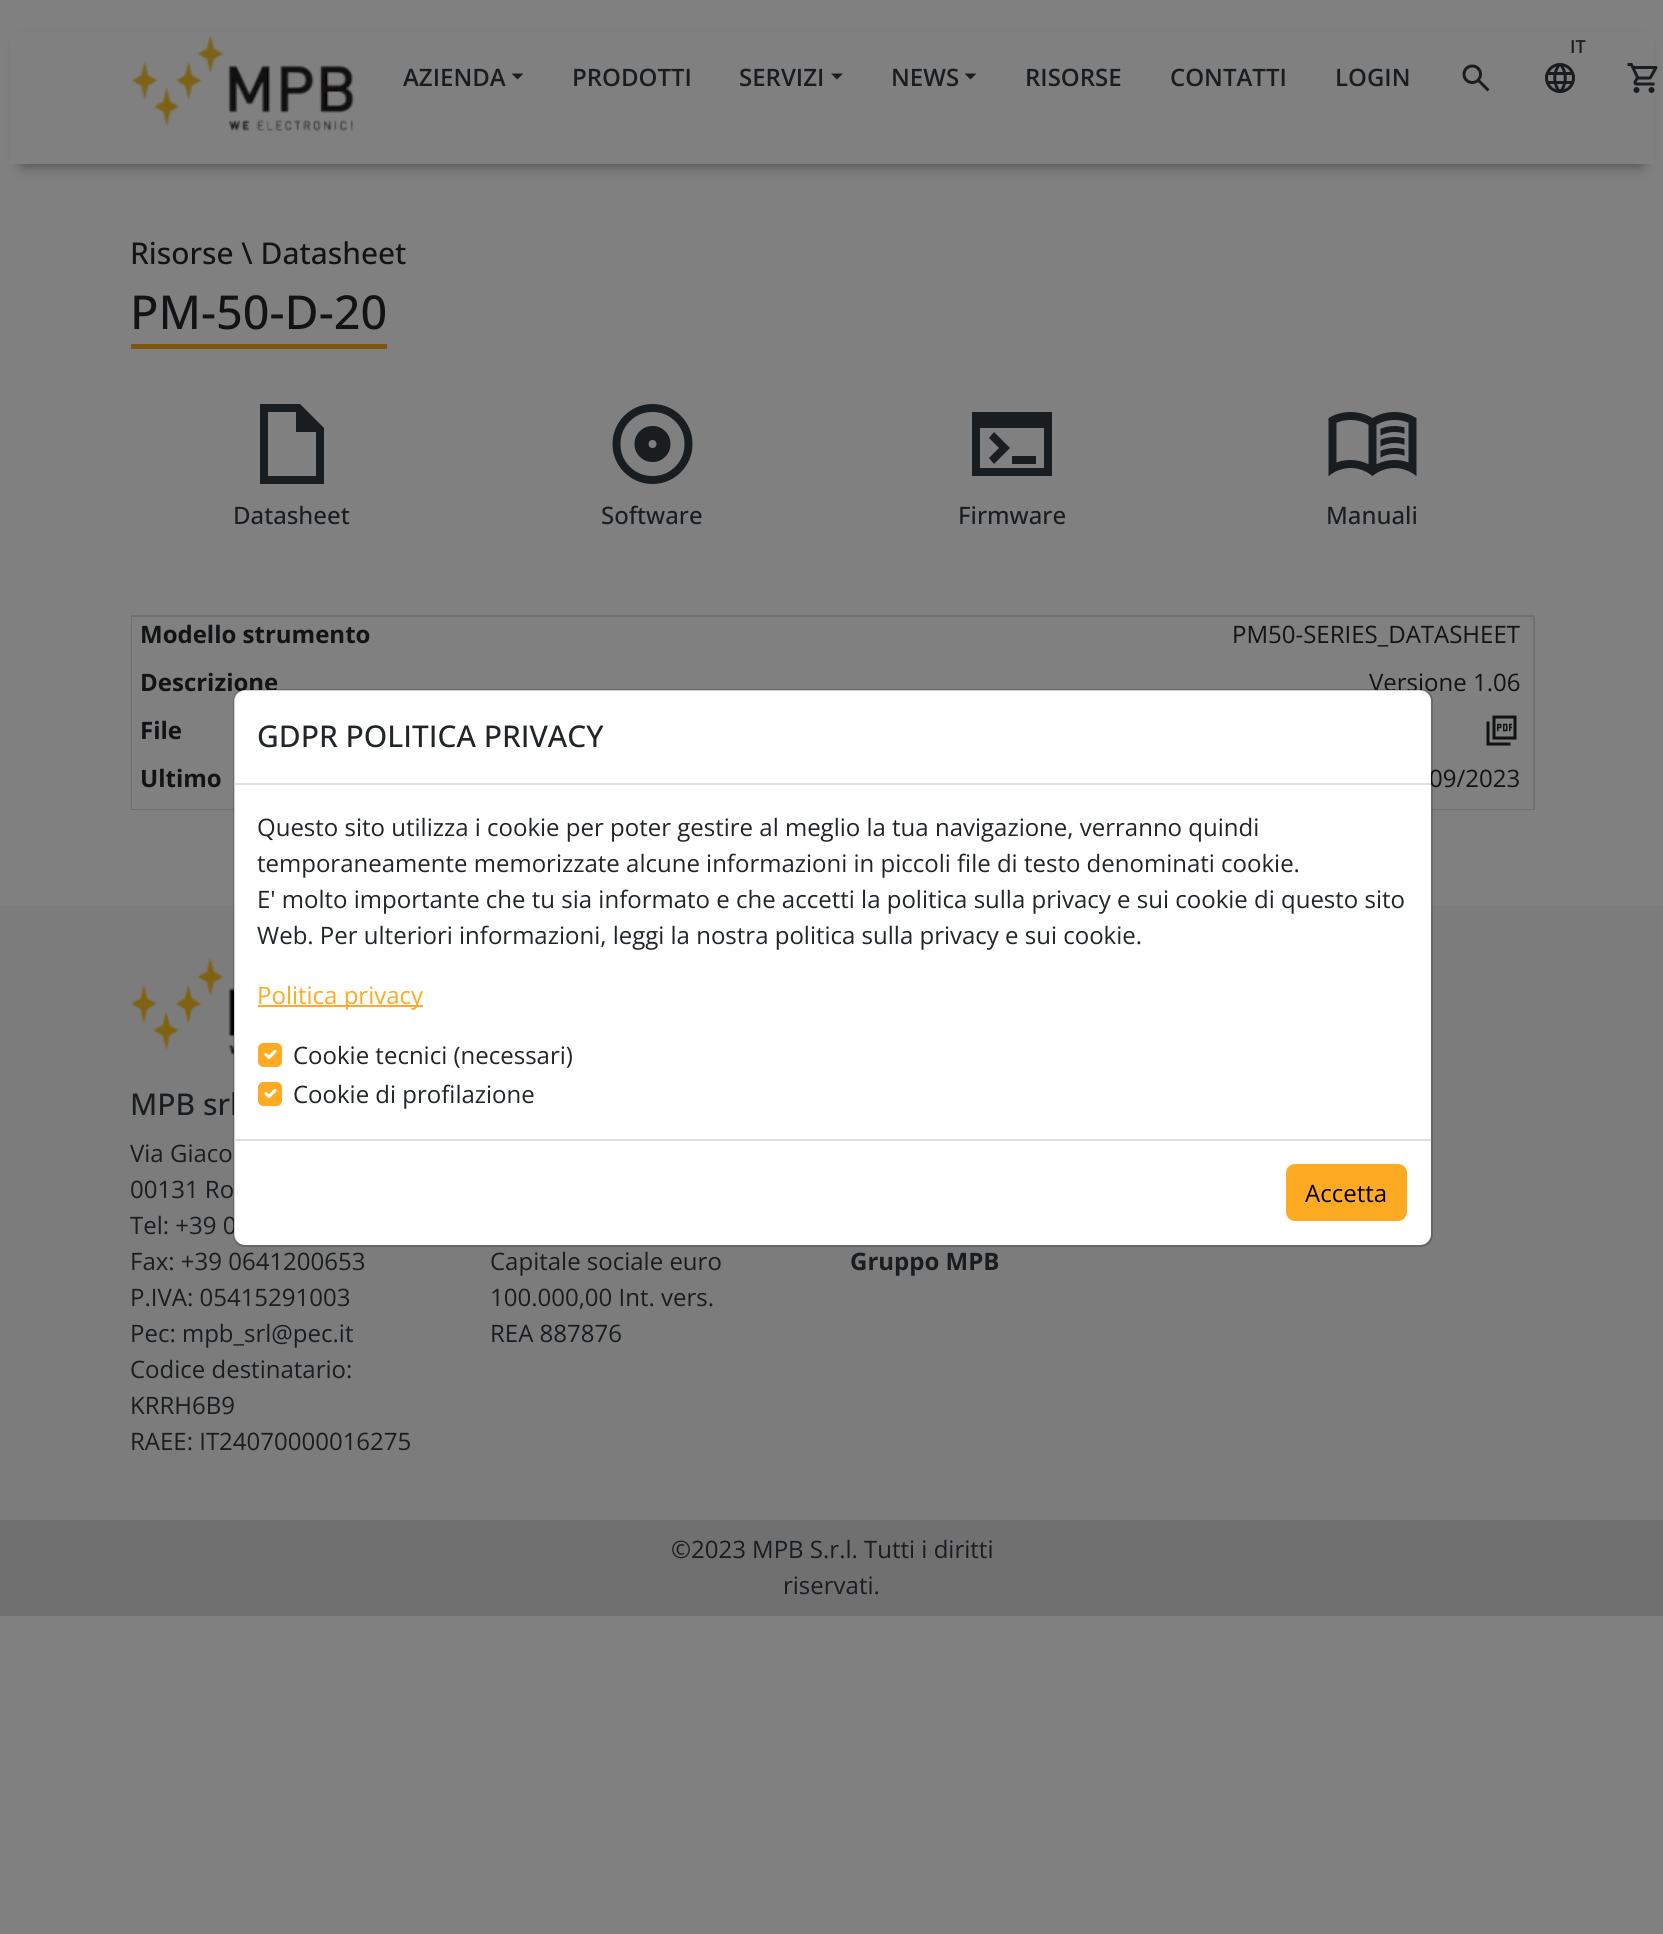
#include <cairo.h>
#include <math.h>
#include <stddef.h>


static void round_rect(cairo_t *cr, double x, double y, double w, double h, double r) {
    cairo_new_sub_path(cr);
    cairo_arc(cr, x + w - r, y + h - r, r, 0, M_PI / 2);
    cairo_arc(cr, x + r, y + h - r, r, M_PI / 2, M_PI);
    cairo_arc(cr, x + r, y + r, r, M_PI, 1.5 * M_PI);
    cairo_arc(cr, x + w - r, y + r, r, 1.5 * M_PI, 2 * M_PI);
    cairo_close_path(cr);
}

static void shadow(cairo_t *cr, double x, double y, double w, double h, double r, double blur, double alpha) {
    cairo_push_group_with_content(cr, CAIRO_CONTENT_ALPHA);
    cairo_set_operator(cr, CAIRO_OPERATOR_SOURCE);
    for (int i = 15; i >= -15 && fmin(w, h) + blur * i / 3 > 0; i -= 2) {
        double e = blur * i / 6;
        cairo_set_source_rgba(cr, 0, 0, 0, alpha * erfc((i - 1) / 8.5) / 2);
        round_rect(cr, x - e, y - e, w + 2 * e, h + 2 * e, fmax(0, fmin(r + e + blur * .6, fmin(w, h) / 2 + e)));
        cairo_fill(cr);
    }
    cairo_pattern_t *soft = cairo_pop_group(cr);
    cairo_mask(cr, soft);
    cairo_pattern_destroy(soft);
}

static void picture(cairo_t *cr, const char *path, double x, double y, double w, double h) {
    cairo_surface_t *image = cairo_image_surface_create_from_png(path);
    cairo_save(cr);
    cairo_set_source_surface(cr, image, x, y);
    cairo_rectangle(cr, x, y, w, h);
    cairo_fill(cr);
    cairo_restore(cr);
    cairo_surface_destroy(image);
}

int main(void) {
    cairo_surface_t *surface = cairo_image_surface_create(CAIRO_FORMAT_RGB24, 1663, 1934);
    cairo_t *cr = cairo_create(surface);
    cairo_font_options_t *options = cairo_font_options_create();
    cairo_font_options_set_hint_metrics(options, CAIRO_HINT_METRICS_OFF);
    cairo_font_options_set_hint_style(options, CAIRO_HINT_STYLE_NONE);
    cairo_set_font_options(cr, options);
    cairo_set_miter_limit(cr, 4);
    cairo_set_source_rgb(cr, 0.502, 0.502, 0.502);
    cairo_paint(cr);
    cairo_set_source_rgb(cr, 0.251, 0.251, 0.251);
    shadow(cr, 23, 45, 1618, 119, 0, 7.5, 1);
    cairo_set_source_rgb(cr, 0.502, 0.502, 0.502);
    cairo_rectangle(cr, 10, 32, 1644, 132);
    cairo_fill(cr);
    picture(cr, "img1.png", 131, 34, 224, 97);
    cairo_select_font_face(cr, "Open Sans SemiBold", CAIRO_FONT_SLANT_NORMAL, CAIRO_FONT_WEIGHT_NORMAL);
    cairo_set_font_size(cr, 18);
    cairo_set_source_rgb(cr, 0.102, 0.114, 0.125);
    cairo_move_to(cr, 1570, 53);
    cairo_show_text(cr, "IT");
    picture(cr, "img2.png", 1545, 63, 30, 30);
    cairo_set_font_size(cr, 24);
    cairo_move_to(cr, 403, 86);
    cairo_show_text(cr, "AZIENDA");
    cairo_new_path(cr);
    cairo_move_to(cr, 511.5, 73.5);
    cairo_line_to(cr, 523.5, 73.5);
    cairo_line_to(cr, 517.5, 79.5);
    cairo_close_path(cr);
    cairo_fill(cr);
    cairo_move_to(cr, 572, 86);
    cairo_show_text(cr, "PRODOTTI");
    cairo_move_to(cr, 739, 86);
    cairo_show_text(cr, "SERVIZI");
    cairo_new_path(cr);
    cairo_move_to(cr, 831, 73.5);
    cairo_line_to(cr, 843, 73.5);
    cairo_line_to(cr, 837, 79.5);
    cairo_close_path(cr);
    cairo_fill(cr);
    cairo_move_to(cr, 891, 86);
    cairo_show_text(cr, "NEWS");
    cairo_new_path(cr);
    cairo_move_to(cr, 964.5, 73.5);
    cairo_line_to(cr, 976.5, 73.5);
    cairo_line_to(cr, 970.5, 79.5);
    cairo_close_path(cr);
    cairo_fill(cr);
    cairo_move_to(cr, 1025, 86);
    cairo_show_text(cr, "RISORSE");
    cairo_move_to(cr, 1170, 86);
    cairo_show_text(cr, "CONTATTI");
    cairo_move_to(cr, 1335, 86);
    cairo_show_text(cr, "LOGIN");
    picture(cr, "img3.png", 1462, 64, 28, 28);
    picture(cr, "img4.png", 1627, 63, 31, 30);
    cairo_select_font_face(cr, "Open Sans Medium", CAIRO_FONT_SLANT_NORMAL, CAIRO_FONT_WEIGHT_NORMAL);
    cairo_set_font_size(cr, 30);
    cairo_set_source_rgb(cr, 0.067, 0.075, 0.082);
    cairo_move_to(cr, 130, 264);
    cairo_show_text(cr, "Risorse \\ Datasheet");
    cairo_set_source_rgb(cr, 0.502, 0.333, 0.071);
    cairo_rectangle(cr, 131, 344, 256, 5);
    cairo_fill(cr);
    cairo_set_font_size(cr, 46.75);
    cairo_set_source_rgb(cr, 0.067, 0.075, 0.082);
    cairo_move_to(cr, 130, 329);
    cairo_show_text(cr, "PM-50-D-20");
    cairo_set_source_rgb(cr, 0.102, 0.114, 0.125);
    cairo_new_path(cr);
    cairo_move_to(cr, 260, 484);
    cairo_line_to(cr, 260, 404);
    cairo_line_to(cr, 300, 404);
    cairo_line_to(cr, 324, 428);
    cairo_line_to(cr, 324, 484);
    cairo_close_path(cr);
    cairo_move_to(cr, 296, 432);
    cairo_line_to(cr, 296, 412);
    cairo_line_to(cr, 268, 412);
    cairo_line_to(cr, 268, 476);
    cairo_line_to(cr, 316, 476);
    cairo_line_to(cr, 316, 432);
    cairo_close_path(cr);
    cairo_move_to(cr, 268, 412);
    cairo_line_to(cr, 268, 476);
    cairo_close_path(cr);
    cairo_fill(cr);
    cairo_set_font_size(cr, 24);
    cairo_move_to(cr, 233, 524);
    cairo_show_text(cr, "Datasheet");
    picture(cr, "img5.png", 612, 404, 81, 80);
    cairo_move_to(cr, 601, 524);
    cairo_show_text(cr, "Software");
    cairo_new_path(cr);
    cairo_move_to(cr, 972, 476);
    cairo_line_to(cr, 972, 412);
    cairo_line_to(cr, 1052, 412);
    cairo_line_to(cr, 1052, 476);
    cairo_close_path(cr);
    cairo_move_to(cr, 980, 468);
    cairo_line_to(cr, 1044, 468);
    cairo_line_to(cr, 1044, 428);
    cairo_line_to(cr, 980, 428);
    cairo_close_path(cr);
    cairo_move_to(cr, 994, 464);
    cairo_line_to(cr, 989, 458);
    cairo_line_to(cr, 999, 448);
    cairo_line_to(cr, 989, 438);
    cairo_line_to(cr, 994, 432);
    cairo_line_to(cr, 1010, 448);
    cairo_close_path(cr);
    cairo_move_to(cr, 1012, 464);
    cairo_line_to(cr, 1012, 456);
    cairo_line_to(cr, 1036, 456);
    cairo_line_to(cr, 1036, 464);
    cairo_close_path(cr);
    cairo_fill(cr);
    cairo_move_to(cr, 958, 524);
    cairo_show_text(cr, "Firmware");
    picture(cr, "img6.png", 1328, 412, 89, 65);
    cairo_move_to(cr, 1326, 524);
    cairo_show_text(cr, "Manuali");
    cairo_rectangle(cr, 132, 616, 1402, 193);
    cairo_set_source_rgb(cr, 0.439, 0.439, 0.439);
    cairo_stroke(cr);
    cairo_set_source_rgb(cr, 0.502, 0.502, 0.502);
    cairo_rectangle(cr, 132, 617, 1, 144);
    cairo_fill(cr);
    cairo_select_font_face(cr, "Open Sans", CAIRO_FONT_SLANT_NORMAL, CAIRO_FONT_WEIGHT_BOLD);
    cairo_set_source_rgb(cr, 0.067, 0.075, 0.082);
    cairo_move_to(cr, 140, 643);
    cairo_show_text(cr, "Modello strumento");
    cairo_select_font_face(cr, "Open Sans", CAIRO_FONT_SLANT_NORMAL, CAIRO_FONT_WEIGHT_NORMAL);
    cairo_move_to(cr, 1232, 643);
    cairo_show_text(cr, "PM50-SERIES_DATASHEET");
    cairo_select_font_face(cr, "Open Sans", CAIRO_FONT_SLANT_NORMAL, CAIRO_FONT_WEIGHT_BOLD);
    cairo_move_to(cr, 140, 691);
    cairo_show_text(cr, "Descrizione");
    cairo_select_font_face(cr, "Open Sans", CAIRO_FONT_SLANT_NORMAL, CAIRO_FONT_WEIGHT_NORMAL);
    cairo_move_to(cr, 1369, 691);
    cairo_show_text(cr, "Versione 1.06");
    cairo_select_font_face(cr, "Open Sans", CAIRO_FONT_SLANT_NORMAL, CAIRO_FONT_WEIGHT_BOLD);
    cairo_move_to(cr, 140, 739);
    cairo_show_text(cr, "File");
    picture(cr, "img7.png", 1486, 715, 31, 31);
    cairo_set_source_rgb(cr, 0.502, 0.502, 0.502);
    cairo_rectangle(cr, 132, 761, 1401, 48);
    cairo_fill(cr);
    cairo_set_source_rgb(cr, 0.067, 0.075, 0.082);
    cairo_move_to(cr, 140, 787);
    cairo_show_text(cr, "Ultimo");
    cairo_select_font_face(cr, "Open Sans", CAIRO_FONT_SLANT_NORMAL, CAIRO_FONT_WEIGHT_NORMAL);
    cairo_move_to(cr, 1429, 787);
    cairo_show_text(cr, "09/2023");
    cairo_set_source_rgb(cr, 0.486, 0.486, 0.486);
    cairo_rectangle(cr, 0, 906, 1663, 614);
    cairo_fill(cr);
    cairo_select_font_face(cr, "Open Sans Medium", CAIRO_FONT_SLANT_NORMAL, CAIRO_FONT_WEIGHT_NORMAL);
    cairo_set_font_size(cr, 30);
    cairo_set_source_rgb(cr, 0.102, 0.114, 0.125);
    cairo_move_to(cr, 130, 1115);
    cairo_show_text(cr, "MPB srl");
    cairo_select_font_face(cr, "Open Sans", CAIRO_FONT_SLANT_NORMAL, CAIRO_FONT_WEIGHT_NORMAL);
    cairo_set_font_size(cr, 24);
    cairo_move_to(cr, 130, 1234);
    cairo_show_text(cr, "Tel: +39 0");
    cairo_set_source_rgb(cr, 1, 1, 1);
    round_rect(cr, 234, 690, 1197, 555, 11);
    cairo_fill(cr);
    picture(cr, "img8.png", 131, 957, 103, 98);
    round_rect(cr, 234, 690, 1198, 556, 11);
    cairo_set_source_rgba(cr, 0, 0, 0, 0.18);
    cairo_stroke(cr);
    cairo_set_source_rgb(cr, 0.878, 0.878, 0.878);
    cairo_rectangle(cr, 234, 783, 1197, 2);
    cairo_fill(cr);
    cairo_select_font_face(cr, "Open Sans Medium", CAIRO_FONT_SLANT_NORMAL, CAIRO_FONT_WEIGHT_NORMAL);
    cairo_set_font_size(cr, 30);
    cairo_set_source_rgb(cr, 0.129, 0.145, 0.161);
    cairo_move_to(cr, 257, 747);
    cairo_show_text(cr, "GDPR POLITICA PRIVACY");
    cairo_select_font_face(cr, "Open Sans", CAIRO_FONT_SLANT_NORMAL, CAIRO_FONT_WEIGHT_NORMAL);
    cairo_set_font_size(cr, 24);
    cairo_move_to(cr, 257, 836);
    cairo_show_text(cr, "Questo sito utilizza i cookie per poter gestire al meglio la tua navigazione, verranno quindi");
    cairo_move_to(cr, 257, 872);
    cairo_show_text(cr, "temporaneamente memorizzate alcune informazioni in piccoli file di testo denominati cookie.");
    cairo_move_to(cr, 257, 908);
    cairo_show_text(cr, "E' molto importante che tu sia informato e che accetti la politica sulla privacy e sui cookie di questo sito");
    cairo_move_to(cr, 257, 944);
    cairo_show_text(cr, "Web. Per ulteriori informazioni, leggi la nostra politica sulla privacy e sui cookie.");
    cairo_set_source_rgb(cr, 1, 0.667, 0.137);
    cairo_rectangle(cr, 258, 1005, 165, 2);
    cairo_fill(cr);
    cairo_move_to(cr, 257, 1004);
    cairo_show_text(cr, "Politica privacy");
    round_rect(cr, 258, 1043, 24, 24, 6);
    cairo_fill(cr);
    cairo_new_path(cr);
    cairo_move_to(cr, 266, 1054.5);
    cairo_line_to(cr, 269, 1057.5);
    cairo_line_to(cr, 275, 1051.5);
    cairo_set_source_rgb(cr, 1, 1, 1);
    cairo_set_line_width(cr, 3.1);
    cairo_set_line_cap(cr, CAIRO_LINE_CAP_ROUND);
    cairo_set_line_join(cr, CAIRO_LINE_JOIN_ROUND);
    cairo_stroke(cr);
    round_rect(cr, 259, 1044, 22, 22, 5);
    cairo_set_source_rgb(cr, 1, 0.667, 0.137);
    cairo_set_line_width(cr, 2);
    cairo_set_line_cap(cr, CAIRO_LINE_CAP_BUTT);
    cairo_set_line_join(cr, CAIRO_LINE_JOIN_MITER);
    cairo_stroke(cr);
    cairo_set_source_rgb(cr, 0.129, 0.145, 0.161);
    cairo_move_to(cr, 293, 1064);
    cairo_show_text(cr, "Cookie tecnici (necessari)");
    cairo_set_source_rgb(cr, 1, 0.667, 0.137);
    round_rect(cr, 258, 1082, 24, 24, 6);
    cairo_fill(cr);
    cairo_new_path(cr);
    cairo_move_to(cr, 266, 1093.5);
    cairo_line_to(cr, 269, 1096.5);
    cairo_line_to(cr, 275, 1090.5);
    cairo_set_source_rgb(cr, 1, 1, 1);
    cairo_set_line_width(cr, 3.1);
    cairo_set_line_cap(cr, CAIRO_LINE_CAP_ROUND);
    cairo_set_line_join(cr, CAIRO_LINE_JOIN_ROUND);
    cairo_stroke(cr);
    round_rect(cr, 259, 1083, 22, 22, 5);
    cairo_set_source_rgb(cr, 1, 0.667, 0.137);
    cairo_set_line_width(cr, 2);
    cairo_set_line_cap(cr, CAIRO_LINE_CAP_BUTT);
    cairo_set_line_join(cr, CAIRO_LINE_JOIN_MITER);
    cairo_stroke(cr);
    cairo_set_source_rgb(cr, 0.129, 0.145, 0.161);
    cairo_move_to(cr, 293, 1103);
    cairo_show_text(cr, "Cookie di profilazione");
    cairo_set_source_rgb(cr, 0.878, 0.878, 0.878);
    cairo_rectangle(cr, 234, 1139, 1197, 2);
    cairo_fill(cr);
    cairo_set_source_rgb(cr, 1, 0.667, 0.137);
    round_rect(cr, 1287, 1165, 119, 55, 8);
    cairo_fill_preserve(cr);
    cairo_stroke(cr);
    cairo_set_source_rgb(cr, 0, 0, 0);
    cairo_move_to(cr, 1305, 1202);
    cairo_show_text(cr, "Accetta");
    cairo_set_source_rgb(cr, 0.102, 0.114, 0.125);
    cairo_move_to(cr, 130, 1162);
    cairo_show_text(cr, "Via Giaco");
    cairo_move_to(cr, 130, 1198);
    cairo_show_text(cr, "00131 Ro");
    cairo_move_to(cr, 130, 1270);
    cairo_show_text(cr, "Fax: +39 0641200653");
    cairo_move_to(cr, 130, 1306);
    cairo_show_text(cr, "P.IVA: 05415291003");
    cairo_move_to(cr, 130, 1342);
    cairo_show_text(cr, "Pec: mpb_srl@pec.it");
    cairo_move_to(cr, 130, 1378);
    cairo_show_text(cr, "Codice destinatario:");
    cairo_move_to(cr, 130, 1414);
    cairo_show_text(cr, "KRRH6B9");
    cairo_move_to(cr, 130, 1450);
    cairo_show_text(cr, "RAEE: IT24070000016275");
    cairo_move_to(cr, 490, 1270);
    cairo_show_text(cr, "Capitale sociale euro");
    cairo_move_to(cr, 490, 1306);
    cairo_show_text(cr, "100.000,00 Int. vers.");
    cairo_move_to(cr, 490, 1342);
    cairo_show_text(cr, "REA 887876");
    cairo_select_font_face(cr, "Open Sans", CAIRO_FONT_SLANT_NORMAL, CAIRO_FONT_WEIGHT_BOLD);
    cairo_move_to(cr, 850, 1270);
    cairo_show_text(cr, "Gruppo MPB");
    cairo_set_source_rgb(cr, 0.439, 0.439, 0.439);
    cairo_rectangle(cr, 0, 1520, 1663, 96);
    cairo_fill(cr);
    cairo_select_font_face(cr, "Open Sans", CAIRO_FONT_SLANT_NORMAL, CAIRO_FONT_WEIGHT_NORMAL);
    cairo_set_source_rgb(cr, 0.102, 0.114, 0.125);
    cairo_move_to(cr, 671, 1558);
    cairo_show_text(cr, "©2023 MPB S.r.l. Tutti i diritti");
    cairo_move_to(cr, 783, 1594);
    cairo_show_text(cr, "riservati.");
    cairo_surface_write_to_png(surface, "page.png");
    cairo_font_options_destroy(options);
    cairo_destroy(cr);
    cairo_surface_destroy(surface);
    return 0;
}
